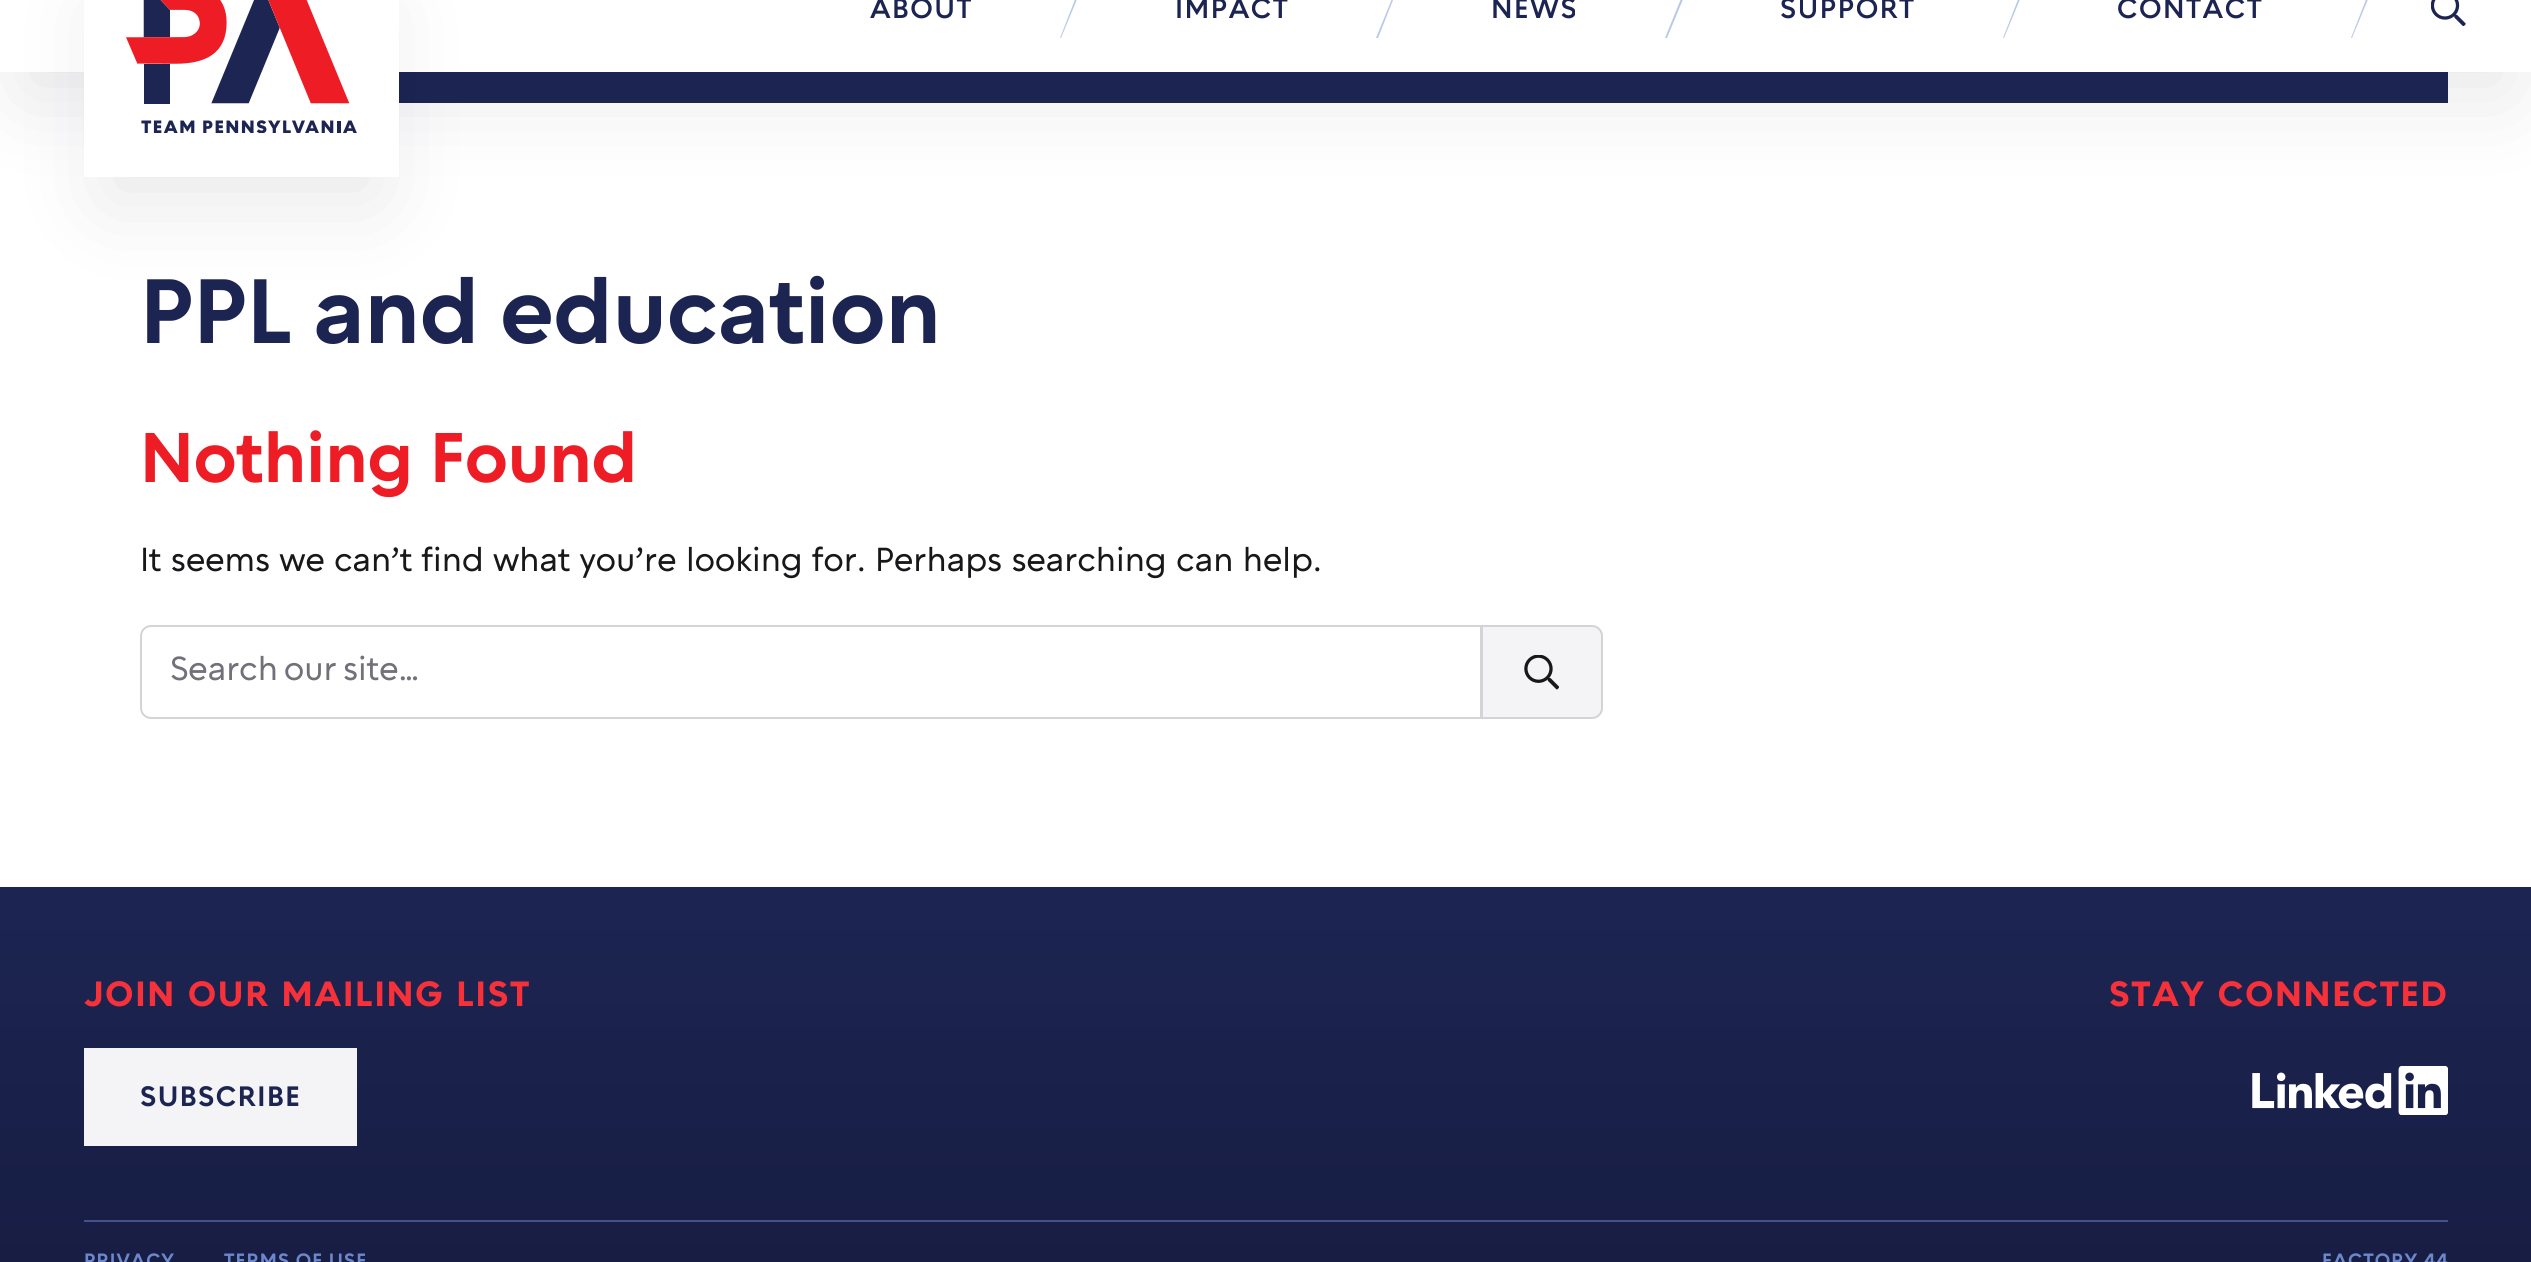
#include <cairo.h>
#include <math.h>
#include <stddef.h>


static void spaced_text(cairo_t *cr, double x, double y, const char *s, double letter, double word) {
    cairo_move_to(cr, x, y);
    while (*s) {
        char ch[5] = {0};
        int n = 0;
        do ch[n++] = *s++; while ((*s & 0xC0) == 0x80);
        cairo_show_text(cr, ch);
        cairo_rel_move_to(cr, letter + word * (*ch == ' '), 0);
    }
}

static void round_rect(cairo_t *cr, double x, double y, double w, double h, double r) {
    cairo_new_sub_path(cr);
    cairo_arc(cr, x + w - r, y + h - r, r, 0, M_PI / 2);
    cairo_arc(cr, x + r, y + h - r, r, M_PI / 2, M_PI);
    cairo_arc(cr, x + r, y + r, r, M_PI, 1.5 * M_PI);
    cairo_arc(cr, x + w - r, y + r, r, 1.5 * M_PI, 2 * M_PI);
    cairo_close_path(cr);
}

static void shadow(cairo_t *cr, double x, double y, double w, double h, double r, double blur, double alpha) {
    cairo_push_group_with_content(cr, CAIRO_CONTENT_ALPHA);
    cairo_set_operator(cr, CAIRO_OPERATOR_SOURCE);
    for (int i = 15; i >= -15 && fmin(w, h) + blur * i / 3 > 0; i -= 2) {
        double e = blur * i / 6;
        cairo_set_source_rgba(cr, 0, 0, 0, alpha * erfc((i - 1) / 8.5) / 2);
        round_rect(cr, x - e, y - e, w + 2 * e, h + 2 * e, fmax(0, fmin(r + e + blur * .6, fmin(w, h) / 2 + e)));
        cairo_fill(cr);
    }
    cairo_pattern_t *soft = cairo_pop_group(cr);
    cairo_mask(cr, soft);
    cairo_pattern_destroy(soft);
}

static void picture(cairo_t *cr, const char *path, double x, double y, double w, double h) {
    cairo_surface_t *image = cairo_image_surface_create_from_png(path);
    cairo_save(cr);
    cairo_set_source_surface(cr, image, x, y);
    cairo_rectangle(cr, x, y, w, h);
    cairo_fill(cr);
    cairo_restore(cr);
    cairo_surface_destroy(image);
}

int main(void) {
    cairo_surface_t *surface = cairo_image_surface_create(CAIRO_FORMAT_RGB24, 2531, 1262);
    cairo_t *cr = cairo_create(surface);
    cairo_font_options_t *options = cairo_font_options_create();
    cairo_font_options_set_hint_metrics(options, CAIRO_HINT_METRICS_OFF);
    cairo_font_options_set_hint_style(options, CAIRO_HINT_STYLE_NONE);
    cairo_set_font_options(cr, options);
    cairo_set_miter_limit(cr, 4);
    cairo_pattern_t *gradient;
    cairo_set_source_rgb(cr, 1, 1, 1);
    cairo_paint(cr);
    cairo_set_source_rgb(cr, 0.047, 0.055, 0.133);
    shadow(cr, 21, 11, 2490, 84, 0, 44, 0.1);
    cairo_set_source_rgb(cr, 1, 1, 1);
    cairo_rectangle(cr, 0, 0, 2531, 72);
    cairo_fill(cr);
    cairo_set_source_rgb(cr, 0.11, 0.145, 0.322);
    cairo_rectangle(cr, 399, 72, 2049, 31);
    cairo_fill(cr);
    cairo_set_source_rgb(cr, 0.047, 0.055, 0.133);
    shadow(cr, 105, 11, 273, 189, 0, 44, 0.1);
    cairo_set_source_rgb(cr, 1, 1, 1);
    cairo_rectangle(cr, 84, 0, 315, 177);
    cairo_fill(cr);
    picture(cr, "img1.png", 126, 0, 231, 133);
    cairo_select_font_face(cr, "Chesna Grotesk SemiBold", CAIRO_FONT_SLANT_NORMAL, CAIRO_FONT_WEIGHT_NORMAL);
    cairo_set_font_size(cr, 28);
    cairo_set_source_rgb(cr, 0.11, 0.145, 0.322);
    spaced_text(cr, 870, 18, "ABOUT", 1.5, 0);
    cairo_set_source_rgb(cr, 0.725, 0.784, 0.906);
    cairo_new_path(cr);
    cairo_move_to(cr, 1083, -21);
    cairo_line_to(cr, 1085, -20);
    cairo_line_to(cr, 1061, 38);
    cairo_line_to(cr, 1060, 38);
    cairo_close_path(cr);
    cairo_fill(cr);
    cairo_set_source_rgb(cr, 0.11, 0.145, 0.322);
    spaced_text(cr, 1175, 18, "IMPACT", 1.5, 0);
    cairo_set_source_rgb(cr, 0.725, 0.784, 0.906);
    cairo_new_path(cr);
    cairo_move_to(cr, 1400, -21);
    cairo_line_to(cr, 1401, -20);
    cairo_line_to(cr, 1378, 38);
    cairo_line_to(cr, 1376, 38);
    cairo_close_path(cr);
    cairo_fill(cr);
    cairo_set_source_rgb(cr, 0.11, 0.145, 0.322);
    spaced_text(cr, 1491, 18, "NEWS", 1.5, 0);
    cairo_set_source_rgb(cr, 0.725, 0.784, 0.906);
    cairo_new_path(cr);
    cairo_move_to(cr, 1689, -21);
    cairo_line_to(cr, 1691, -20);
    cairo_line_to(cr, 1667, 38);
    cairo_line_to(cr, 1665, 38);
    cairo_close_path(cr);
    cairo_fill(cr);
    cairo_set_source_rgb(cr, 0.11, 0.145, 0.322);
    spaced_text(cr, 1780, 18, "SUPPORT", 1.5, 0);
    cairo_set_source_rgb(cr, 0.725, 0.784, 0.906);
    cairo_new_path(cr);
    cairo_move_to(cr, 2026, -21);
    cairo_line_to(cr, 2028, -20);
    cairo_line_to(cr, 2004, 38);
    cairo_line_to(cr, 2003, 38);
    cairo_close_path(cr);
    cairo_fill(cr);
    cairo_set_source_rgb(cr, 0.11, 0.145, 0.322);
    spaced_text(cr, 2117, 18, "CONTACT", 1.5, 0);
    cairo_set_source_rgb(cr, 0.725, 0.784, 0.906);
    cairo_new_path(cr);
    cairo_move_to(cr, 2374, -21);
    cairo_line_to(cr, 2376, -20);
    cairo_line_to(cr, 2352, 38);
    cairo_line_to(cr, 2351, 38);
    cairo_close_path(cr);
    cairo_fill(cr);
    picture(cr, "img2.png", 2431, 0, 35, 26);
    cairo_select_font_face(cr, "Chesna Grotesk", CAIRO_FONT_SLANT_NORMAL, CAIRO_FONT_WEIGHT_BOLD);
    cairo_set_font_size(cr, 91);
    cairo_set_source_rgb(cr, 0.11, 0.145, 0.322);
    spaced_text(cr, 140, 343, "PPL and education", -0.42, 3.25);
    cairo_set_font_size(cr, 70);
    cairo_set_source_rgb(cr, 0.929, 0.11, 0.145);
    spaced_text(cr, 140, 482, "Nothing Found", -0.42, 3.25);
    cairo_select_font_face(cr, "Chesna Grotesk", CAIRO_FONT_SLANT_NORMAL, CAIRO_FONT_WEIGHT_NORMAL);
    cairo_set_font_size(cr, 33.25);
    cairo_set_source_rgb(cr, 0.094, 0.094, 0.106);
    spaced_text(cr, 140, 571, "It seems we can’t find what you’re looking for. Perhaps searching can help.", -0.42, 3.25);
    cairo_new_path(cr);
    cairo_move_to(cr, 151, 626);
    cairo_line_to(cr, 1481, 626);
    cairo_line_to(cr, 1481, 718);
    cairo_line_to(cr, 151, 718);
    cairo_curve_to(cr, 145.5, 718, 141, 713.5, 141, 708);
    cairo_line_to(cr, 141, 636);
    cairo_curve_to(cr, 141, 630.5, 145.5, 626, 151, 626);
    cairo_close_path(cr);
    cairo_set_source_rgb(cr, 0.831, 0.831, 0.847);
    cairo_stroke(cr);
    cairo_set_source_rgb(cr, 0.443, 0.443, 0.478);
    spaced_text(cr, 170, 680, "Search our site…", -0.42, 0);
    cairo_set_source_rgb(cr, 0.957, 0.957, 0.961);
    cairo_new_path(cr);
    cairo_move_to(cr, 1482, 626);
    cairo_line_to(cr, 1592, 626);
    cairo_curve_to(cr, 1597.5, 626, 1602, 630.5, 1602, 636);
    cairo_line_to(cr, 1602, 708);
    cairo_curve_to(cr, 1602, 713.5, 1597.5, 718, 1592, 718);
    cairo_line_to(cr, 1482, 718);
    cairo_close_path(cr);
    cairo_fill_preserve(cr);
    cairo_set_source_rgb(cr, 0.831, 0.831, 0.847);
    cairo_stroke(cr);
    picture(cr, "img3.png", 1524, 655, 35, 35);
    gradient = cairo_pattern_create_linear(1266, 887, 1266, 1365);
    cairo_pattern_add_color_stop_rgba(gradient, 0, 0.11, 0.145, 0.322, 1);
    cairo_pattern_add_color_stop_rgba(gradient, 1, 0.086, 0.106, 0.247, 1);
    cairo_set_source(cr, gradient);
    cairo_pattern_destroy(gradient);
    cairo_rectangle(cr, 0, 887, 2531, 375);
    cairo_fill(cr);
    cairo_select_font_face(cr, "Chesna Grotesk ExtraBold", CAIRO_FONT_SLANT_NORMAL, CAIRO_FONT_WEIGHT_NORMAL);
    cairo_set_font_size(cr, 35);
    cairo_set_source_rgb(cr, 0.965, 0.192, 0.227);
    spaced_text(cr, 84, 1006, "JOIN OUR MAILING LIST", 1.75, 3.25);
    cairo_set_source_rgb(cr, 0.957, 0.957, 0.961);
    cairo_rectangle(cr, 84, 1048, 273, 98);
    cairo_fill(cr);
    cairo_select_font_face(cr, "Chesna Grotesk", CAIRO_FONT_SLANT_NORMAL, CAIRO_FONT_WEIGHT_BOLD);
    cairo_set_font_size(cr, 28);
    cairo_set_source_rgb(cr, 0.11, 0.145, 0.322);
    spaced_text(cr, 140, 1106, "SUBSCRIBE", 1.5, 0);
    cairo_select_font_face(cr, "Chesna Grotesk ExtraBold", CAIRO_FONT_SLANT_NORMAL, CAIRO_FONT_WEIGHT_NORMAL);
    cairo_set_font_size(cr, 35);
    cairo_set_source_rgb(cr, 0.965, 0.192, 0.227);
    spaced_text(cr, 2109, 1006, "STAY CONNECTED", 1.75, 3.25);
    picture(cr, "img4.png", 2252, 1066, 196, 49);
    cairo_set_source_rgb(cr, 0.263, 0.325, 0.537);
    cairo_rectangle(cr, 84, 1220, 2364, 2);
    cairo_fill(cr);
    cairo_select_font_face(cr, "Chesna Grotesk", CAIRO_FONT_SLANT_NORMAL, CAIRO_FONT_WEIGHT_BOLD);
    cairo_set_font_size(cr, 19.25);
    cairo_set_source_rgb(cr, 0.427, 0.529, 0.804);
    spaced_text(cr, 84, 1267, "PRIVACY", 1, 0);
    spaced_text(cr, 224, 1267, "TERMS OF USE", 1, 1);
    spaced_text(cr, 2322, 1267, "FACTORY 44", 1, 1);
    cairo_surface_write_to_png(surface, "page.png");
    cairo_font_options_destroy(options);
    cairo_destroy(cr);
    cairo_surface_destroy(surface);
    return 0;
}
